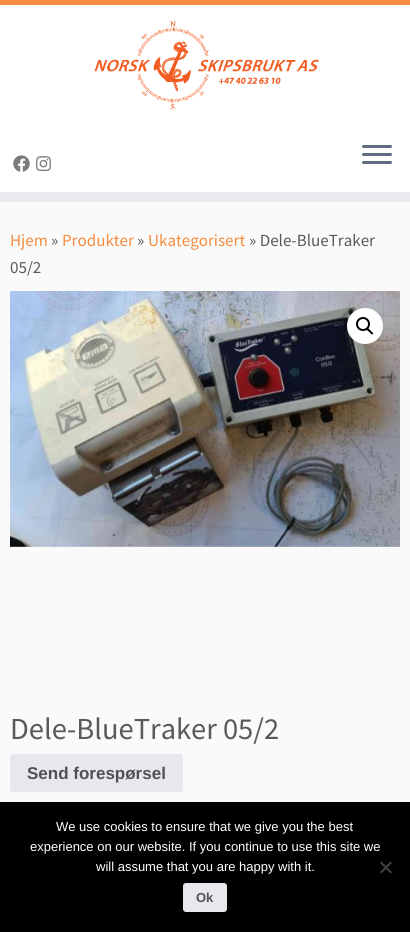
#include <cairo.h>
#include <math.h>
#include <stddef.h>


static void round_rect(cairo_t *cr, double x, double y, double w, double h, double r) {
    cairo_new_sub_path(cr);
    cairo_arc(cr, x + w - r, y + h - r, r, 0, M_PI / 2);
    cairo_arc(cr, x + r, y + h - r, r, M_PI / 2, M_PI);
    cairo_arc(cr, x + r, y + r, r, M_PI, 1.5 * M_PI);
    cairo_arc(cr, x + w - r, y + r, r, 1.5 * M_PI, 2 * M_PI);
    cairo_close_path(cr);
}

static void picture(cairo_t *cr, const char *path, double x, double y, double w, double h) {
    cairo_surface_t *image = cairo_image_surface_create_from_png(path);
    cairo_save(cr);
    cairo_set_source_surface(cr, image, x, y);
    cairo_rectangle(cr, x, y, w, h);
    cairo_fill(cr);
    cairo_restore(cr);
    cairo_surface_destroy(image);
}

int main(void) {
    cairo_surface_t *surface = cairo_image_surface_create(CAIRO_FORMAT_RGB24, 410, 932);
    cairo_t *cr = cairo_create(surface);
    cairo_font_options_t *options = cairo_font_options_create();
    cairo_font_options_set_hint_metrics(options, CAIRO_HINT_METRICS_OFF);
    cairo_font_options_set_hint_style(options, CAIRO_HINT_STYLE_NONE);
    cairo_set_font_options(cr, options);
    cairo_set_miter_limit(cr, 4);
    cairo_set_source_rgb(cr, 0.98, 0.98, 0.98);
    cairo_paint(cr);
    cairo_set_source_rgb(cr, 1, 1, 1);
    cairo_rectangle(cr, 0, 5, 410, 187);
    cairo_fill(cr);
    cairo_set_source_rgb(cr, 0.969, 0.549, 0.251);
    cairo_rectangle(cr, 0, 0, 410, 5);
    cairo_fill(cr);
    cairo_set_source_rgb(cr, 0.914, 0.918, 0.933);
    cairo_rectangle(cr, 0, 192, 410, 10);
    cairo_fill(cr);
    picture(cr, "img1.png", 94, 21, 225, 89);
    picture(cr, "img2.png", 13, 155, 17, 17);
    picture(cr, "img3.png", 36, 156, 15, 16);
    cairo_set_source_rgb(cr, 0.373, 0.435, 0.506);
    round_rect(cr, 362, 145, 30, 3, 1.5);
    cairo_fill(cr);
    round_rect(cr, 362, 153, 30, 3, 1.5);
    cairo_fill(cr);
    round_rect(cr, 362, 161, 30, 3, 1.5);
    cairo_fill(cr);
    cairo_select_font_face(cr, "Source Sans Pro", CAIRO_FONT_SLANT_NORMAL, CAIRO_FONT_WEIGHT_NORMAL);
    cairo_set_font_size(cr, 17);
    cairo_set_source_rgb(cr, 0.969, 0.549, 0.251);
    cairo_move_to(cr, 10, 246);
    cairo_show_text(cr, "Hjem");
    cairo_set_source_rgb(cr, 0.353, 0.353, 0.353);
    cairo_move_to(cr, 51, 246);
    cairo_show_text(cr, "»");
    cairo_set_source_rgb(cr, 0.969, 0.549, 0.251);
    cairo_move_to(cr, 62, 246);
    cairo_show_text(cr, "Produkter");
    cairo_set_source_rgb(cr, 0.353, 0.353, 0.353);
    cairo_move_to(cr, 137, 246);
    cairo_show_text(cr, "»");
    cairo_set_source_rgb(cr, 0.969, 0.549, 0.251);
    cairo_move_to(cr, 148, 246);
    cairo_show_text(cr, "Ukategorisert");
    cairo_set_source_rgb(cr, 0.353, 0.353, 0.353);
    cairo_move_to(cr, 249, 246);
    cairo_show_text(cr, "» Dele-BlueTraker");
    cairo_move_to(cr, 10, 273);
    cairo_show_text(cr, "05/2");
    picture(cr, "img4.png", 10, 291, 390, 256);
    cairo_set_source_rgb(cr, 1, 1, 1);
    cairo_arc(cr, 365, 326, 18, 0, 2 * M_PI);
    cairo_fill(cr);
    cairo_arc(cr, 363, 324, 6, 0, 2 * M_PI);
    cairo_set_source_rgb(cr, 0, 0, 0);
    cairo_stroke(cr);
    cairo_new_path(cr);
    cairo_move_to(cr, 367, 328.5);
    cairo_curve_to(cr, 368.5, 327.5, 370, 330, 370.5, 330.5);
    cairo_curve_to(cr, 371.5, 331.5, 374, 333, 373, 334);
    cairo_curve_to(cr, 371.5, 335.5, 370, 332.5, 369.5, 332);
    cairo_curve_to(cr, 368.5, 331.5, 366, 330, 367, 328.5);
    cairo_close_path(cr);
    cairo_fill(cr);
    cairo_set_font_size(cr, 30.5);
    cairo_set_source_rgb(cr, 0.353, 0.353, 0.353);
    cairo_move_to(cr, 10, 739);
    cairo_show_text(cr, "Dele-BlueTraker 05/2");
    cairo_set_source_rgb(cr, 0.914, 0.902, 0.929);
    round_rect(cr, 10, 754, 173, 38, 3);
    cairo_fill(cr);
    cairo_select_font_face(cr, "Liberation Sans", CAIRO_FONT_SLANT_NORMAL, CAIRO_FONT_WEIGHT_BOLD);
    cairo_set_font_size(cr, 17);
    cairo_set_source_rgb(cr, 0.318, 0.318, 0.318);
    cairo_move_to(cr, 27, 779);
    cairo_show_text(cr, "Send forespørsel");
    cairo_set_source_rgb(cr, 0, 0, 0);
    cairo_rectangle(cr, 0, 802, 410, 130);
    cairo_fill(cr);
    cairo_select_font_face(cr, "Liberation Sans", CAIRO_FONT_SLANT_NORMAL, CAIRO_FONT_WEIGHT_NORMAL);
    cairo_set_font_size(cr, 13);
    cairo_set_source_rgb(cr, 1, 1, 1);
    cairo_move_to(cr, 56, 831);
    cairo_show_text(cr, "We use cookies to ensure that we give you the best");
    cairo_move_to(cr, 30, 851);
    cairo_show_text(cr, "experience on our website. If you continue to use this site we");
    cairo_move_to(cr, 96, 871);
    cairo_show_text(cr, "will assume that you are happy with it.");
    cairo_set_source_rgb(cr, 0.251, 0.251, 0.251);
    cairo_new_path(cr);
    cairo_move_to(cr, 390.5, 861.5);
    cairo_line_to(cr, 392, 863);
    cairo_line_to(cr, 381.5, 873.5);
    cairo_line_to(cr, 380, 872);
    cairo_close_path(cr);
    cairo_fill(cr);
    cairo_new_path(cr);
    cairo_move_to(cr, 380, 863);
    cairo_line_to(cr, 381.5, 861.5);
    cairo_line_to(cr, 392, 872);
    cairo_line_to(cr, 390.5, 873.5);
    cairo_close_path(cr);
    cairo_fill(cr);
    cairo_set_source_rgb(cr, 0.914, 0.902, 0.929);
    round_rect(cr, 183, 883, 44, 29, 3);
    cairo_fill(cr);
    cairo_select_font_face(cr, "Liberation Sans", CAIRO_FONT_SLANT_NORMAL, CAIRO_FONT_WEIGHT_BOLD);
    cairo_set_source_rgb(cr, 0.318, 0.318, 0.318);
    cairo_move_to(cr, 196, 902);
    cairo_show_text(cr, "Ok");
    cairo_surface_write_to_png(surface, "page.png");
    cairo_font_options_destroy(options);
    cairo_destroy(cr);
    cairo_surface_destroy(surface);
    return 0;
}
